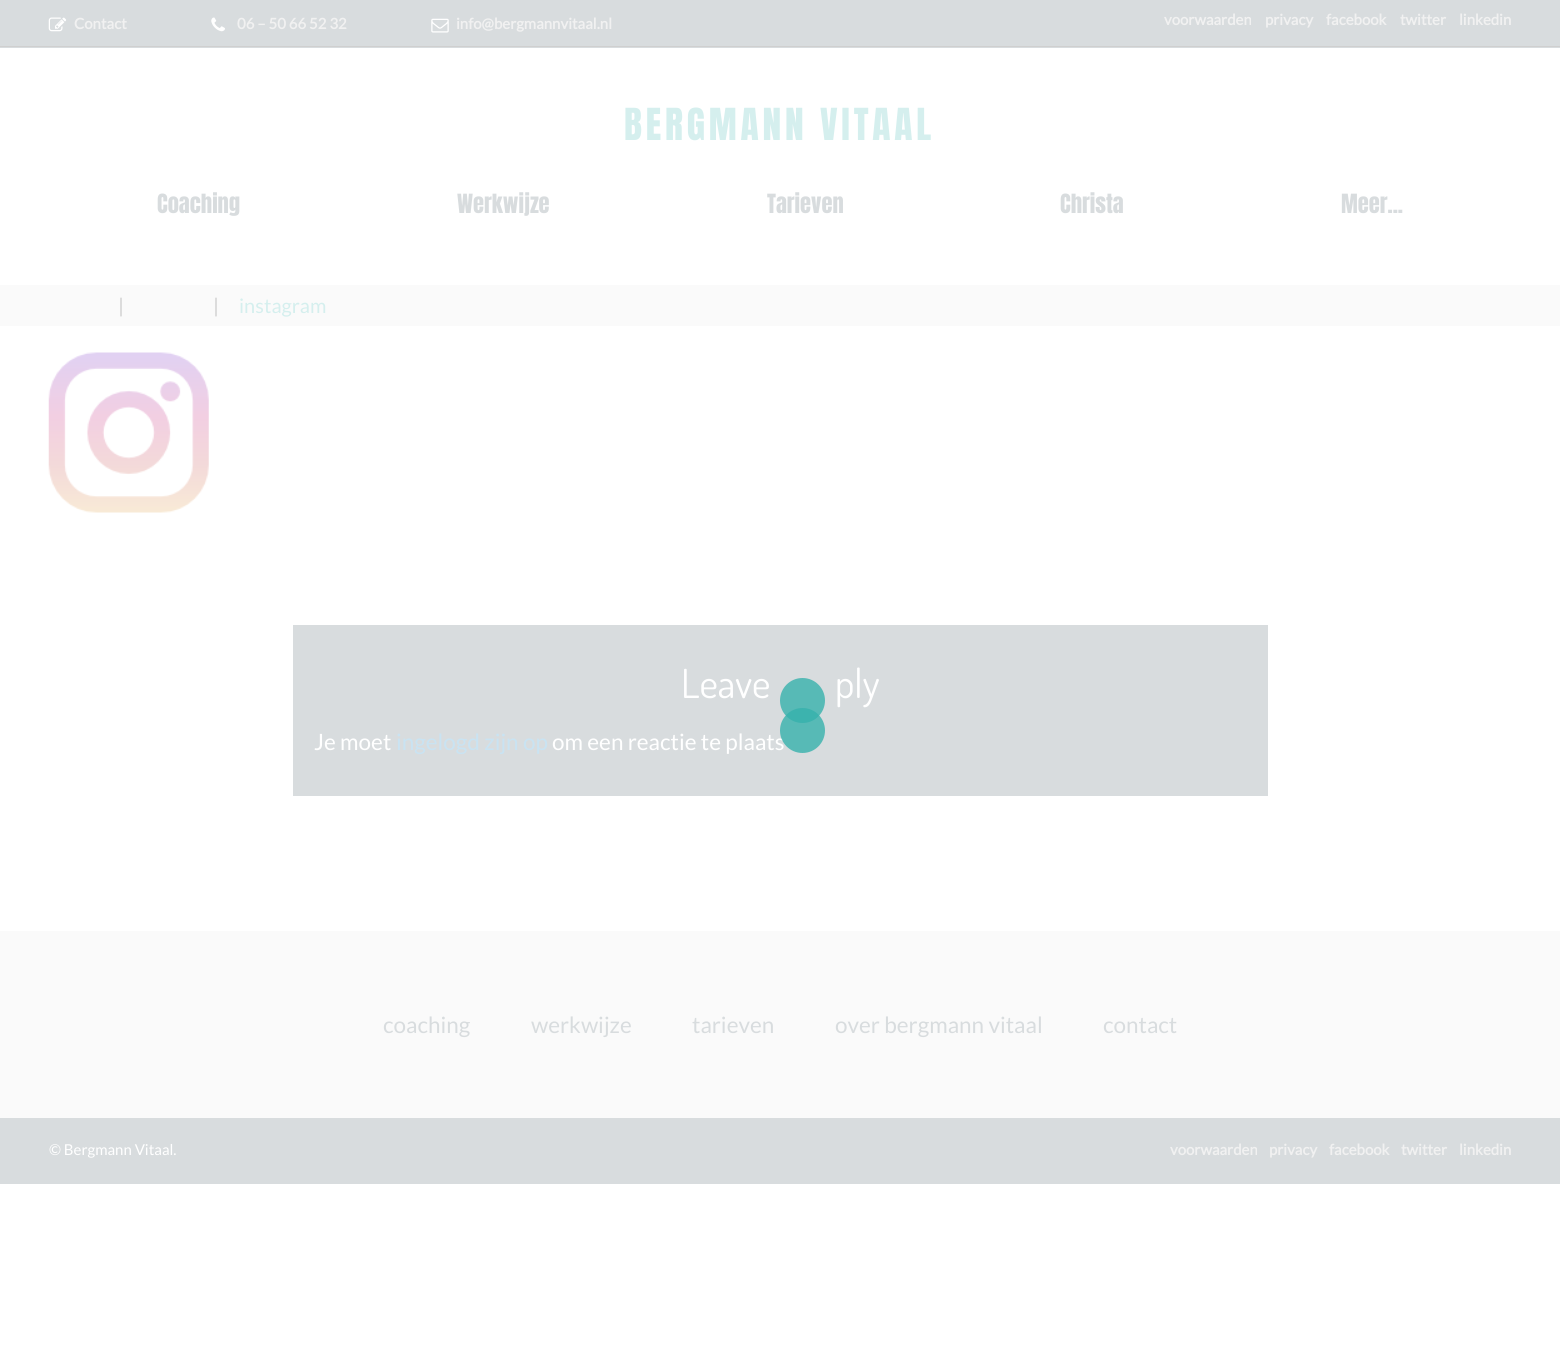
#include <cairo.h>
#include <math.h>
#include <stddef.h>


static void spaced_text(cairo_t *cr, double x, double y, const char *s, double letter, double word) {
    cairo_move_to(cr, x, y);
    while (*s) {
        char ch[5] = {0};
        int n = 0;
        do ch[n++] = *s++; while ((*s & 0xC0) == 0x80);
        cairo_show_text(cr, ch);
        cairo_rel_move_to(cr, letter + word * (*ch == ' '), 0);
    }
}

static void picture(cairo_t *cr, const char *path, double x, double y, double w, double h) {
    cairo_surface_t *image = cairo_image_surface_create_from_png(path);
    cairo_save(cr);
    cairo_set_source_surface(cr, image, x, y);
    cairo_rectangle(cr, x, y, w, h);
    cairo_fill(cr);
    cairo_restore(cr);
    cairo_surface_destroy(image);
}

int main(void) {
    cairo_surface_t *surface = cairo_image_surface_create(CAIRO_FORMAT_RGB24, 1560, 1354);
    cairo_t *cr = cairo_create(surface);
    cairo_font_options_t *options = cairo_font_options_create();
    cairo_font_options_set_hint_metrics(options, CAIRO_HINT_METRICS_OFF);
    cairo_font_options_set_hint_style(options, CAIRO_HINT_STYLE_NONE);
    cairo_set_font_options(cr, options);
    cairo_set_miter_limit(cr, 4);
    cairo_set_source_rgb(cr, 1, 1, 1);
    cairo_paint(cr);
    cairo_set_source_rgb(cr, 0.847, 0.863, 0.871);
    cairo_rectangle(cr, 0, 0, 1560, 48);
    cairo_fill(cr);
    cairo_set_source_rgb(cr, 0.812, 0.812, 0.812);
    cairo_rectangle(cr, 0, 46, 1560, 1);
    cairo_fill(cr);
    picture(cr, "img1.png", 48, 17, 19, 15);
    cairo_select_font_face(cr, "Lato", CAIRO_FONT_SLANT_NORMAL, CAIRO_FONT_WEIGHT_BOLD);
    cairo_set_font_size(cr, 15);
    cairo_set_source_rgb(cr, 0.945, 0.945, 0.945);
    cairo_move_to(cr, 74, 29);
    cairo_show_text(cr, "Contact");
    picture(cr, "img2.png", 211, 17, 14, 15);
    cairo_move_to(cr, 237, 29);
    cairo_show_text(cr, "06 – 50 66 52 32");
    picture(cr, "img3.png", 431, 18, 18, 15);
    cairo_move_to(cr, 456, 29);
    cairo_show_text(cr, "info@bergmannvitaal.nl");
    cairo_move_to(cr, 1164, 25);
    cairo_show_text(cr, "voorwaarden");
    cairo_move_to(cr, 1265, 25);
    cairo_show_text(cr, "privacy");
    cairo_move_to(cr, 1326, 25);
    cairo_show_text(cr, "facebook");
    cairo_move_to(cr, 1400, 25);
    cairo_show_text(cr, "twitter");
    cairo_move_to(cr, 1459, 25);
    cairo_show_text(cr, "linkedin");
    cairo_select_font_face(cr, "Anton", CAIRO_FONT_SLANT_NORMAL, CAIRO_FONT_WEIGHT_NORMAL);
    cairo_set_font_size(cr, 37.5);
    cairo_set_source_rgb(cr, 0.835, 0.937, 0.933);
    spaced_text(cr, 624, 140, "BERGMANN VITAAL", 3.8, 0);
    cairo_set_font_size(cr, 22.5);
    cairo_set_source_rgb(cr, 0.847, 0.863, 0.871);
    cairo_move_to(cr, 157, 213);
    cairo_show_text(cr, "Coaching");
    cairo_move_to(cr, 457, 213);
    cairo_show_text(cr, "Werkwijze");
    cairo_move_to(cr, 767, 213);
    cairo_show_text(cr, "Tarieven");
    cairo_move_to(cr, 1060, 213);
    cairo_show_text(cr, "Christa");
    cairo_move_to(cr, 1341, 213);
    cairo_show_text(cr, "Meer...");
    cairo_set_source_rgb(cr, 0.98, 0.98, 0.98);
    cairo_rectangle(cr, 0, 285, 1560, 41);
    cairo_fill(cr);
    cairo_select_font_face(cr, "Lato", CAIRO_FONT_SLANT_NORMAL, CAIRO_FONT_WEIGHT_NORMAL);
    cairo_set_font_size(cr, 20);
    cairo_set_source_rgb(cr, 0.812, 0.812, 0.812);
    cairo_move_to(cr, 118, 313);
    cairo_show_text(cr, "|");
    cairo_move_to(cr, 213, 313);
    cairo_show_text(cr, "|");
    cairo_set_source_rgb(cr, 0.835, 0.937, 0.933);
    cairo_move_to(cr, 239, 313);
    cairo_show_text(cr, "instagram");
    picture(cr, "img4.png", 48, 352, 161, 161);
    cairo_set_source_rgb(cr, 0.847, 0.863, 0.871);
    cairo_rectangle(cr, 293, 625, 975, 171);
    cairo_fill(cr);
    cairo_select_font_face(cr, "Dosis", CAIRO_FONT_SLANT_NORMAL, CAIRO_FONT_WEIGHT_NORMAL);
    cairo_set_font_size(cr, 40);
    cairo_set_source_rgb(cr, 1, 1, 1);
    cairo_move_to(cr, 681, 698);
    cairo_show_text(cr, "Leave");
    cairo_move_to(cr, 835, 698);
    cairo_show_text(cr, "ply");
    cairo_select_font_face(cr, "Lato", CAIRO_FONT_SLANT_NORMAL, CAIRO_FONT_WEIGHT_NORMAL);
    cairo_set_font_size(cr, 22.5);
    cairo_move_to(cr, 314, 750);
    cairo_show_text(cr, "Je moet");
    cairo_set_source_rgb(cr, 0.788, 0.89, 0.949);
    cairo_move_to(cr, 396, 750);
    cairo_show_text(cr, "ingelogd zijn op");
    cairo_set_source_rgb(cr, 1, 1, 1);
    cairo_move_to(cr, 552, 750);
    cairo_show_text(cr, "om een reactie te plaats");
    cairo_set_source_rgb(cr, 0.98, 0.98, 0.98);
    cairo_rectangle(cr, 0, 931, 1560, 187);
    cairo_fill(cr);
    cairo_set_source_rgb(cr, 0.847, 0.863, 0.871);
    cairo_move_to(cr, 383, 1033);
    cairo_show_text(cr, "coaching");
    cairo_move_to(cr, 531, 1033);
    cairo_show_text(cr, "werkwijze");
    cairo_move_to(cr, 692, 1033);
    cairo_show_text(cr, "tarieven");
    cairo_move_to(cr, 835, 1033);
    cairo_show_text(cr, "over bergmann vitaal");
    cairo_move_to(cr, 1103, 1033);
    cairo_show_text(cr, "contact");
    cairo_rectangle(cr, 0, 1118, 1560, 66);
    cairo_fill(cr);
    cairo_set_font_size(cr, 15);
    cairo_set_source_rgb(cr, 1, 1, 1);
    cairo_move_to(cr, 49, 1155);
    cairo_show_text(cr, "© Bergmann Vitaal.");
    cairo_select_font_face(cr, "Lato", CAIRO_FONT_SLANT_NORMAL, CAIRO_FONT_WEIGHT_BOLD);
    cairo_set_source_rgb(cr, 0.945, 0.945, 0.945);
    cairo_move_to(cr, 1170, 1155);
    cairo_show_text(cr, "voorwaarden");
    cairo_move_to(cr, 1269, 1155);
    cairo_show_text(cr, "privacy");
    cairo_move_to(cr, 1329, 1155);
    cairo_show_text(cr, "facebook");
    cairo_move_to(cr, 1401, 1155);
    cairo_show_text(cr, "twitter");
    cairo_move_to(cr, 1459, 1155);
    cairo_show_text(cr, "linkedin");
    cairo_set_source_rgba(cr, 0.212, 0.694, 0.675, 0.79);
    cairo_new_path(cr);
    cairo_arc(cr, 802.5, 700.5, 22.5, 0, 2 * M_PI);
    cairo_fill(cr);
    cairo_arc(cr, 802.5, 730.5, 22.5, 0, 2 * M_PI);
    cairo_fill(cr);
    cairo_surface_write_to_png(surface, "page.png");
    cairo_font_options_destroy(options);
    cairo_destroy(cr);
    cairo_surface_destroy(surface);
    return 0;
}
